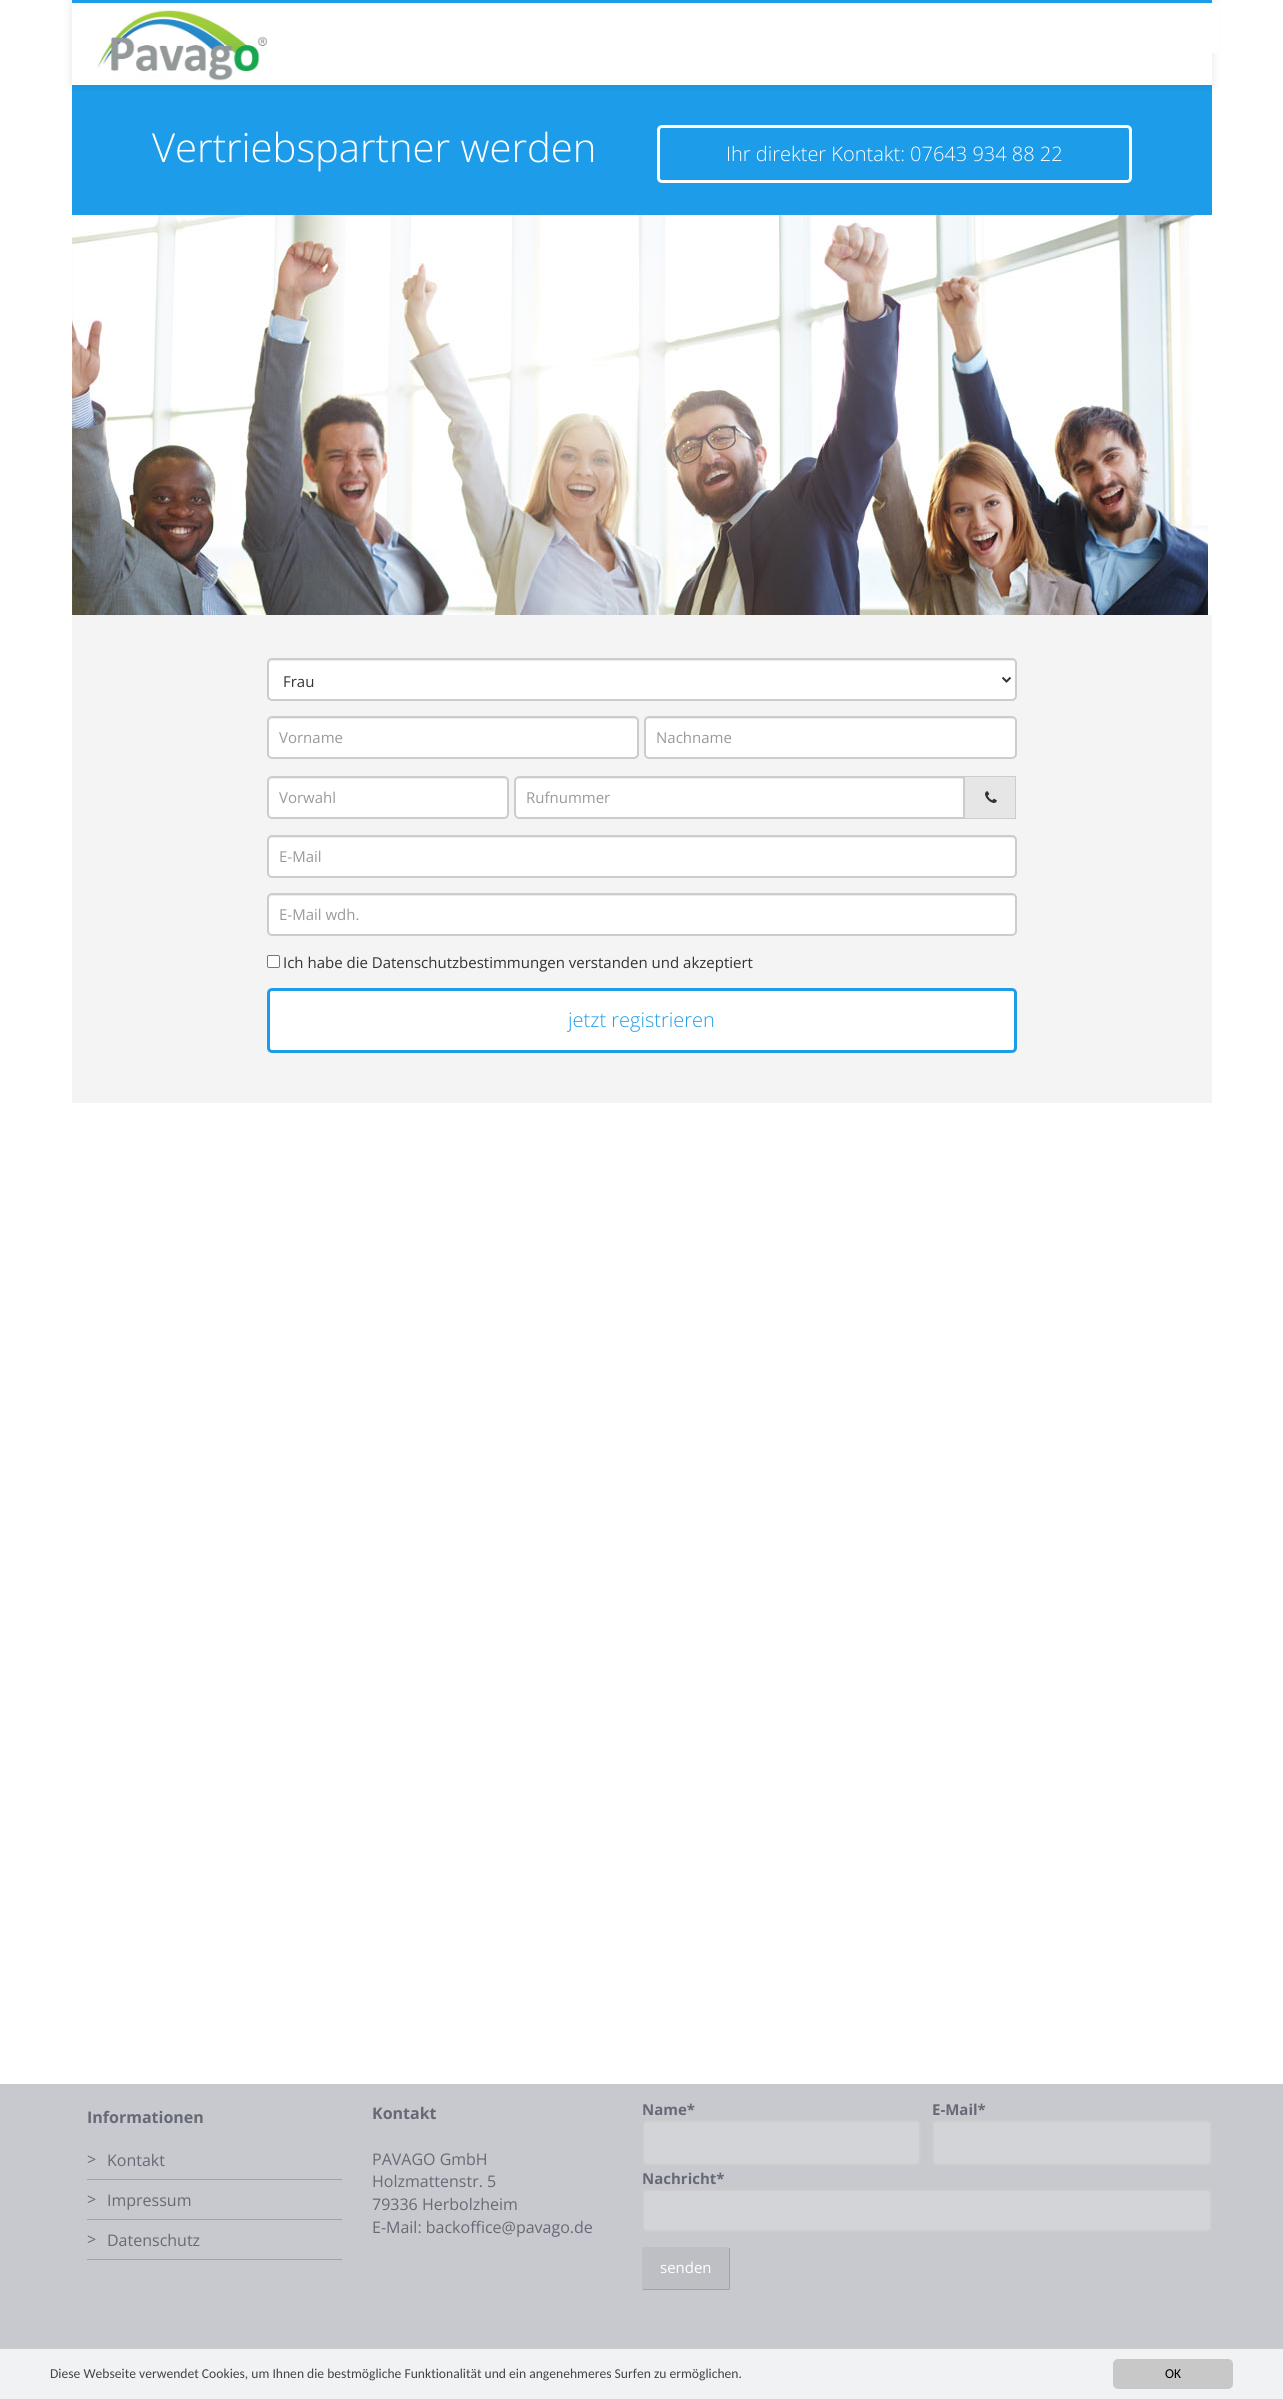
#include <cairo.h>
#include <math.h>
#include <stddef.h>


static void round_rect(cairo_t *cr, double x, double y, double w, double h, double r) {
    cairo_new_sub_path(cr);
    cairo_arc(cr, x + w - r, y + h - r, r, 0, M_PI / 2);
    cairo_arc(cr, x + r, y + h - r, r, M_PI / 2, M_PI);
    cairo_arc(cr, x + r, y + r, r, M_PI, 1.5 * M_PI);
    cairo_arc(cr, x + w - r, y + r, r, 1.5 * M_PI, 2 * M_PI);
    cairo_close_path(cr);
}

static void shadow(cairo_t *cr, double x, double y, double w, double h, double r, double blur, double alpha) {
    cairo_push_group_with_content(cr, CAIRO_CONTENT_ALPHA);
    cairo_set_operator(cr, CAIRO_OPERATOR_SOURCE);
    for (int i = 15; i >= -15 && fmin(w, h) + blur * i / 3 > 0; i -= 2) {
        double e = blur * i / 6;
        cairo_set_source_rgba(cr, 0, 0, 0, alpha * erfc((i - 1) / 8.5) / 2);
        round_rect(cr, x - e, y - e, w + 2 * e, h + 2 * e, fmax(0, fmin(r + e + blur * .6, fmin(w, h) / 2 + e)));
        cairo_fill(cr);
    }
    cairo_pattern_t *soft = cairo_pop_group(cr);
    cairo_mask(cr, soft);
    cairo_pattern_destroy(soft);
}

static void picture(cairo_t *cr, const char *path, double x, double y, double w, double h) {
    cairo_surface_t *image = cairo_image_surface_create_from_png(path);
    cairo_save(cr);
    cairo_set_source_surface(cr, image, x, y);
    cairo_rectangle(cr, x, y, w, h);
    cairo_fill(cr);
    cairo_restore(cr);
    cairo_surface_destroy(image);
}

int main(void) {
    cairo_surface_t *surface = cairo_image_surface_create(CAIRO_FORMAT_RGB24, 1283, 2399);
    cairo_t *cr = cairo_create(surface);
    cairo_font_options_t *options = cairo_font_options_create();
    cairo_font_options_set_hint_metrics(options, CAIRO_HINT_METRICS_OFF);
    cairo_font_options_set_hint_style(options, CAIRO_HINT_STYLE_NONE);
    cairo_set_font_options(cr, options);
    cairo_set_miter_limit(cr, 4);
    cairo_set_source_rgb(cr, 1, 1, 1);
    cairo_paint(cr);
    cairo_set_source_rgb(cr, 0.114, 0.616, 0.914);
    cairo_rectangle(cr, 72, 85, 1140, 130);
    cairo_fill(cr);
    cairo_save(cr);
    cairo_set_fill_rule(cr, CAIRO_FILL_RULE_EVEN_ODD);
    cairo_new_path(cr);
    cairo_move_to(cr, 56, 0);
    cairo_line_to(cr, 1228, 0);
    cairo_line_to(cr, 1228, 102);
    cairo_line_to(cr, 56, 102);
    cairo_close_path(cr);
    cairo_move_to(cr, 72, 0);
    cairo_line_to(cr, 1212, 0);
    cairo_line_to(cr, 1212, 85);
    cairo_line_to(cr, 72, 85);
    cairo_close_path(cr);
    cairo_clip(cr);
    cairo_set_source_rgb(cr, 0, 0, 0);
    shadow(cr, 72, 1, 1140, 85, 0, 5, 0.1);
    cairo_restore(cr);
    cairo_rectangle(cr, 72, 0, 1140, 3);
    cairo_fill(cr);
    cairo_set_source_rgb(cr, 1, 1, 1);
    cairo_rectangle(cr, 1212, 3, 6, 50);
    cairo_fill(cr);
    picture(cr, "img1.png", 97, 10, 171, 71);
    cairo_select_font_face(cr, "Open Sans Light", CAIRO_FONT_SLANT_NORMAL, CAIRO_FONT_WEIGHT_NORMAL);
    cairo_set_font_size(cr, 40);
    cairo_move_to(cr, 152, 162);
    cairo_show_text(cr, "Vertriebspartner werden");
    round_rect(cr, 658.5, 126.5, 472, 55, 3.5);
    cairo_set_line_width(cr, 3);
    cairo_stroke(cr);
    cairo_set_font_size(cr, 20);
    cairo_move_to(cr, 726, 161);
    cairo_show_text(cr, "Ihr direkter Kontakt: 07643 934 88 22");
    picture(cr, "img2.png", 72, 215, 1136, 400);
    cairo_set_source_rgb(cr, 0.957, 0.957, 0.957);
    cairo_rectangle(cr, 72, 615, 1140, 488);
    cairo_fill(cr);
    cairo_set_source_rgb(cr, 1, 1, 1);
    round_rect(cr, 267, 658, 750, 43, 5);
    cairo_fill(cr);
    cairo_set_source_rgb(cr, 0.925, 0.925, 0.925);
    cairo_new_path(cr);
    cairo_move_to(cr, 272, 661);
    cairo_line_to(cr, 1012, 661);
    cairo_curve_to(cr, 1014, 661, 1015, 662, 1015, 664);
    cairo_curve_to(cr, 1015, 662, 1014, 660, 1012, 660);
    cairo_line_to(cr, 272, 660);
    cairo_curve_to(cr, 270, 660, 269, 662, 269, 664);
    cairo_curve_to(cr, 269, 662, 270, 661, 272, 661);
    cairo_close_path(cr);
    cairo_fill(cr);
    round_rect(cr, 268, 659, 748, 41, 4);
    cairo_set_source_rgb(cr, 0.8, 0.8, 0.8);
    cairo_set_line_width(cr, 2);
    cairo_stroke(cr);
    cairo_new_path(cr);
    cairo_move_to(cr, 1002.5, 677.5);
    cairo_line_to(cr, 1006.5, 681.5);
    cairo_line_to(cr, 1010.5, 677.5);
    cairo_set_source_rgb(cr, 0.2, 0.2, 0.2);
    cairo_stroke(cr);
    cairo_select_font_face(cr, "Open Sans", CAIRO_FONT_SLANT_NORMAL, CAIRO_FONT_WEIGHT_NORMAL);
    cairo_set_font_size(cr, 15);
    cairo_move_to(cr, 283, 687);
    cairo_show_text(cr, "Frau");
    cairo_set_source_rgb(cr, 1, 1, 1);
    round_rect(cr, 267, 716, 372, 43, 5);
    cairo_fill(cr);
    cairo_set_source_rgb(cr, 0.925, 0.925, 0.925);
    cairo_new_path(cr);
    cairo_move_to(cr, 272, 719);
    cairo_line_to(cr, 634, 719);
    cairo_curve_to(cr, 636, 719, 637, 720, 637, 722);
    cairo_curve_to(cr, 637, 720, 636, 718, 634, 718);
    cairo_line_to(cr, 272, 718);
    cairo_line_to(cr, 270, 719);
    cairo_line_to(cr, 269, 722);
    cairo_curve_to(cr, 269, 720, 270, 719, 272, 719);
    cairo_close_path(cr);
    cairo_fill(cr);
    round_rect(cr, 268, 717, 370, 41, 4);
    cairo_set_source_rgb(cr, 0.8, 0.8, 0.8);
    cairo_stroke(cr);
    cairo_set_source_rgb(cr, 0.6, 0.6, 0.6);
    cairo_move_to(cr, 279, 743);
    cairo_show_text(cr, "Vorname");
    cairo_set_source_rgb(cr, 1, 1, 1);
    round_rect(cr, 644, 716, 373, 43, 5);
    cairo_fill(cr);
    cairo_set_source_rgb(cr, 0.925, 0.925, 0.925);
    cairo_new_path(cr);
    cairo_move_to(cr, 649, 719);
    cairo_line_to(cr, 1012, 719);
    cairo_curve_to(cr, 1014, 719, 1015, 720, 1015, 722);
    cairo_curve_to(cr, 1015, 720, 1014, 718, 1012, 718);
    cairo_line_to(cr, 649, 718);
    cairo_line_to(cr, 647, 719);
    cairo_line_to(cr, 646, 722);
    cairo_curve_to(cr, 646, 720, 647, 719, 649, 719);
    cairo_close_path(cr);
    cairo_fill(cr);
    round_rect(cr, 645, 717, 371, 41, 4);
    cairo_set_source_rgb(cr, 0.8, 0.8, 0.8);
    cairo_stroke(cr);
    cairo_set_source_rgb(cr, 0.6, 0.6, 0.6);
    cairo_move_to(cr, 656, 743);
    cairo_show_text(cr, "Nachname");
    cairo_set_source_rgb(cr, 1, 1, 1);
    round_rect(cr, 267, 776, 242, 43, 5);
    cairo_fill(cr);
    cairo_set_source_rgb(cr, 0.925, 0.925, 0.925);
    cairo_new_path(cr);
    cairo_move_to(cr, 272, 779);
    cairo_line_to(cr, 505, 779);
    cairo_line_to(cr, 507, 780);
    cairo_line_to(cr, 507, 782);
    cairo_curve_to(cr, 507, 780, 506, 778, 504, 778);
    cairo_line_to(cr, 272, 778);
    cairo_curve_to(cr, 270, 778, 269, 780, 269, 782);
    cairo_curve_to(cr, 269, 780, 270, 779, 272, 779);
    cairo_close_path(cr);
    cairo_fill(cr);
    round_rect(cr, 268, 777, 240, 41, 4);
    cairo_set_source_rgb(cr, 0.8, 0.8, 0.8);
    cairo_stroke(cr);
    cairo_set_source_rgb(cr, 0.6, 0.6, 0.6);
    cairo_move_to(cr, 279, 803);
    cairo_show_text(cr, "Vorwahl");
    cairo_set_source_rgb(cr, 1, 1, 1);
    cairo_new_path(cr);
    cairo_move_to(cr, 519, 776);
    cairo_line_to(cr, 965, 776);
    cairo_line_to(cr, 965, 819);
    cairo_line_to(cr, 519, 819);
    cairo_curve_to(cr, 516, 819, 514, 817, 514, 814);
    cairo_line_to(cr, 514, 781);
    cairo_curve_to(cr, 514, 778, 516, 776, 519, 776);
    cairo_close_path(cr);
    cairo_fill(cr);
    cairo_set_source_rgb(cr, 0.925, 0.925, 0.925);
    cairo_new_path(cr);
    cairo_move_to(cr, 519, 779);
    cairo_line_to(cr, 963, 779);
    cairo_line_to(cr, 963, 778);
    cairo_line_to(cr, 519, 778);
    cairo_curve_to(cr, 517, 778, 516, 780, 516, 782);
    cairo_curve_to(cr, 516, 780, 517, 779, 519, 779);
    cairo_close_path(cr);
    cairo_fill(cr);
    cairo_new_path(cr);
    cairo_move_to(cr, 519, 777);
    cairo_line_to(cr, 964, 777);
    cairo_line_to(cr, 964, 818);
    cairo_line_to(cr, 519, 818);
    cairo_curve_to(cr, 517, 818, 515, 816, 515, 814);
    cairo_line_to(cr, 515, 781);
    cairo_curve_to(cr, 515, 779, 517, 777, 519, 777);
    cairo_close_path(cr);
    cairo_set_source_rgb(cr, 0.8, 0.8, 0.8);
    cairo_stroke(cr);
    cairo_set_source_rgb(cr, 0.6, 0.6, 0.6);
    cairo_move_to(cr, 526, 803);
    cairo_show_text(cr, "Rufnummer");
    cairo_set_source_rgb(cr, 0.902, 0.902, 0.902);
    cairo_rectangle(cr, 965, 777, 50, 41);
    cairo_fill(cr);
    cairo_set_source_rgb(cr, 0.8, 0.8, 0.8);
    cairo_rectangle(cr, 965, 776, 51, 1);
    cairo_fill(cr);
    cairo_rectangle(cr, 1015, 776, 1, 43);
    cairo_fill(cr);
    cairo_rectangle(cr, 965, 818, 51, 1);
    cairo_fill(cr);
    picture(cr, "img3.png", 985, 791, 12, 12);
    cairo_set_source_rgb(cr, 1, 1, 1);
    round_rect(cr, 267, 835, 750, 43, 5);
    cairo_fill(cr);
    cairo_set_source_rgb(cr, 0.925, 0.925, 0.925);
    cairo_new_path(cr);
    cairo_move_to(cr, 272, 838);
    cairo_line_to(cr, 1012, 838);
    cairo_curve_to(cr, 1014, 838, 1015, 839, 1015, 841);
    cairo_curve_to(cr, 1015, 839, 1014, 837, 1012, 837);
    cairo_line_to(cr, 272, 837);
    cairo_curve_to(cr, 270, 837, 269, 839, 269, 841);
    cairo_curve_to(cr, 269, 839, 270, 838, 272, 838);
    cairo_close_path(cr);
    cairo_fill(cr);
    round_rect(cr, 268, 836, 748, 41, 4);
    cairo_set_source_rgb(cr, 0.8, 0.8, 0.8);
    cairo_stroke(cr);
    cairo_set_source_rgb(cr, 0.6, 0.6, 0.6);
    cairo_move_to(cr, 279, 862);
    cairo_show_text(cr, "E-Mail");
    cairo_set_source_rgb(cr, 1, 1, 1);
    round_rect(cr, 267, 893, 750, 43, 5);
    cairo_fill(cr);
    cairo_set_source_rgb(cr, 0.925, 0.925, 0.925);
    cairo_new_path(cr);
    cairo_move_to(cr, 272, 896);
    cairo_line_to(cr, 1012, 896);
    cairo_curve_to(cr, 1014, 896, 1015, 897, 1015, 899);
    cairo_curve_to(cr, 1015, 897, 1014, 895, 1012, 895);
    cairo_line_to(cr, 272, 895);
    cairo_curve_to(cr, 270, 895, 269, 897, 269, 899);
    cairo_curve_to(cr, 269, 897, 270, 896, 272, 896);
    cairo_close_path(cr);
    cairo_fill(cr);
    round_rect(cr, 268, 894, 748, 41, 4);
    cairo_set_source_rgb(cr, 0.8, 0.8, 0.8);
    cairo_stroke(cr);
    cairo_set_source_rgb(cr, 0.6, 0.6, 0.6);
    cairo_move_to(cr, 279, 920);
    cairo_show_text(cr, "E-Mail wdh.");
    cairo_set_source_rgb(cr, 1, 1, 1);
    round_rect(cr, 267.5, 955.5, 12, 12, 1.5);
    cairo_fill_preserve(cr);
    cairo_set_source_rgb(cr, 0.463, 0.463, 0.463);
    cairo_set_line_width(cr, 1);
    cairo_stroke(cr);
    cairo_set_source_rgb(cr, 0.2, 0.2, 0.2);
    cairo_move_to(cr, 283, 968);
    cairo_show_text(cr, "Ich habe die Datenschutzbestimmungen verstanden und akzeptiert");
    cairo_set_source_rgb(cr, 1, 1, 1);
    round_rect(cr, 268.5, 989.5, 747, 62, 3.5);
    cairo_fill_preserve(cr);
    cairo_set_source_rgb(cr, 0.114, 0.616, 0.914);
    cairo_set_line_width(cr, 3);
    cairo_stroke(cr);
    cairo_select_font_face(cr, "Open Sans Light", CAIRO_FONT_SLANT_NORMAL, CAIRO_FONT_WEIGHT_NORMAL);
    cairo_set_font_size(cr, 20);
    cairo_move_to(cr, 568, 1027);
    cairo_show_text(cr, "jetzt registrieren");
    cairo_set_source_rgb(cr, 0.784, 0.788, 0.808);
    cairo_rectangle(cr, 0, 2084, 1283, 264);
    cairo_fill(cr);
    cairo_set_source_rgb(cr, 0.945, 0.949, 0.953);
    cairo_rectangle(cr, 0, 2349, 1283, 50);
    cairo_fill(cr);
    cairo_select_font_face(cr, "Open Sans", CAIRO_FONT_SLANT_NORMAL, CAIRO_FONT_WEIGHT_BOLD);
    cairo_set_font_size(cr, 16);
    cairo_set_source_rgb(cr, 0.396, 0.416, 0.463);
    cairo_move_to(cr, 87, 2123);
    cairo_show_text(cr, "Informationen");
    cairo_set_source_rgb(cr, 0.627, 0.631, 0.647);
    cairo_rectangle(cr, 87, 2179, 255, 1);
    cairo_fill(cr);
    cairo_select_font_face(cr, "Open Sans", CAIRO_FONT_SLANT_NORMAL, CAIRO_FONT_WEIGHT_NORMAL);
    cairo_set_source_rgb(cr, 0.396, 0.416, 0.463);
    cairo_move_to(cr, 87, 2165);
    cairo_show_text(cr, ">");
    cairo_move_to(cr, 107, 2166);
    cairo_show_text(cr, "Kontakt");
    cairo_set_source_rgb(cr, 0.627, 0.631, 0.647);
    cairo_rectangle(cr, 87, 2219, 255, 1);
    cairo_fill(cr);
    cairo_set_source_rgb(cr, 0.396, 0.416, 0.463);
    cairo_move_to(cr, 87, 2205);
    cairo_show_text(cr, ">");
    cairo_move_to(cr, 107, 2206);
    cairo_show_text(cr, "Impressum");
    cairo_set_source_rgb(cr, 0.627, 0.631, 0.647);
    cairo_rectangle(cr, 87, 2259, 255, 1);
    cairo_fill(cr);
    cairo_set_source_rgb(cr, 0.396, 0.416, 0.463);
    cairo_move_to(cr, 87, 2245);
    cairo_show_text(cr, ">");
    cairo_move_to(cr, 107, 2246);
    cairo_show_text(cr, "Datenschutz");
    cairo_select_font_face(cr, "Open Sans", CAIRO_FONT_SLANT_NORMAL, CAIRO_FONT_WEIGHT_BOLD);
    cairo_move_to(cr, 372, 2119);
    cairo_show_text(cr, "Kontakt");
    cairo_select_font_face(cr, "Open Sans", CAIRO_FONT_SLANT_NORMAL, CAIRO_FONT_WEIGHT_NORMAL);
    cairo_move_to(cr, 372, 2165);
    cairo_show_text(cr, "PAVAGO GmbH");
    cairo_move_to(cr, 372, 2187);
    cairo_show_text(cr, "Holzmattenstr. 5");
    cairo_move_to(cr, 372, 2210);
    cairo_show_text(cr, "79336 Herbolzheim");
    cairo_move_to(cr, 372, 2233);
    cairo_show_text(cr, "E-Mail: backoffice@pavago.de");
    cairo_select_font_face(cr, "Open Sans", CAIRO_FONT_SLANT_NORMAL, CAIRO_FONT_WEIGHT_BOLD);
    cairo_set_font_size(cr, 15);
    cairo_move_to(cr, 642, 2115);
    cairo_show_text(cr, "Name*");
    cairo_set_source_rgb(cr, 0.827, 0.831, 0.847);
    round_rect(cr, 643, 2121, 277, 44, 4);
    cairo_fill_preserve(cr);
    cairo_set_source_rgb(cr, 0.8, 0.8, 0.8);
    cairo_set_line_width(cr, 2);
    cairo_stroke(cr);
    cairo_set_source_rgb(cr, 0.396, 0.416, 0.463);
    cairo_move_to(cr, 932, 2115);
    cairo_show_text(cr, "E-Mail*");
    cairo_set_source_rgb(cr, 0.827, 0.831, 0.847);
    round_rect(cr, 933, 2121, 278, 44, 4);
    cairo_fill_preserve(cr);
    cairo_set_source_rgb(cr, 0.8, 0.8, 0.8);
    cairo_stroke(cr);
    cairo_set_source_rgb(cr, 0.396, 0.416, 0.463);
    cairo_move_to(cr, 642, 2184);
    cairo_show_text(cr, "Nachricht*");
    cairo_set_source_rgb(cr, 0.827, 0.831, 0.847);
    round_rect(cr, 643, 2190, 568, 41, 4);
    cairo_fill_preserve(cr);
    cairo_set_source_rgb(cr, 0.8, 0.8, 0.8);
    cairo_stroke(cr);
    cairo_set_source_rgb(cr, 0.627, 0.631, 0.647);
    cairo_new_path(cr);
    cairo_move_to(cr, 643, 2289);
    cairo_line_to(cr, 643, 2290);
    cairo_line_to(cr, 730, 2290);
    cairo_line_to(cr, 730, 2248);
    cairo_line_to(cr, 729, 2248);
    cairo_line_to(cr, 729, 2289);
    cairo_close_path(cr);
    cairo_fill(cr);
    cairo_set_source_rgb(cr, 0.745, 0.749, 0.769);
    cairo_rectangle(cr, 642, 2247, 87, 42);
    cairo_fill(cr);
    cairo_select_font_face(cr, "Open Sans", CAIRO_FONT_SLANT_NORMAL, CAIRO_FONT_WEIGHT_NORMAL);
    cairo_set_source_rgb(cr, 1, 1, 1);
    cairo_move_to(cr, 660, 2273);
    cairo_show_text(cr, "senden");
    cairo_set_source_rgb(cr, 0.8, 0.8, 0.8);
    cairo_rectangle(cr, 0, 2348, 1283, 1);
    cairo_fill(cr);
    cairo_select_font_face(cr, "Carlito", CAIRO_FONT_SLANT_NORMAL, CAIRO_FONT_WEIGHT_NORMAL);
    cairo_set_font_size(cr, 13.6);
    cairo_set_source_rgb(cr, 0.267, 0.267, 0.267);
    cairo_move_to(cr, 50, 2378);
    cairo_show_text(cr, "Diese Webseite verwendet Cookies, um Ihnen die bestmögliche Funktionalität und ein angenehmeres Surfen zu ermöglichen.");
    cairo_set_source_rgb(cr, 0.784, 0.784, 0.784);
    round_rect(cr, 1113, 2359, 120, 30, 5);
    cairo_fill(cr);
    cairo_set_source_rgb(cr, 0, 0, 0);
    cairo_move_to(cr, 1165, 2378);
    cairo_show_text(cr, "OK");
    cairo_surface_write_to_png(surface, "page.png");
    cairo_font_options_destroy(options);
    cairo_destroy(cr);
    cairo_surface_destroy(surface);
    return 0;
}
